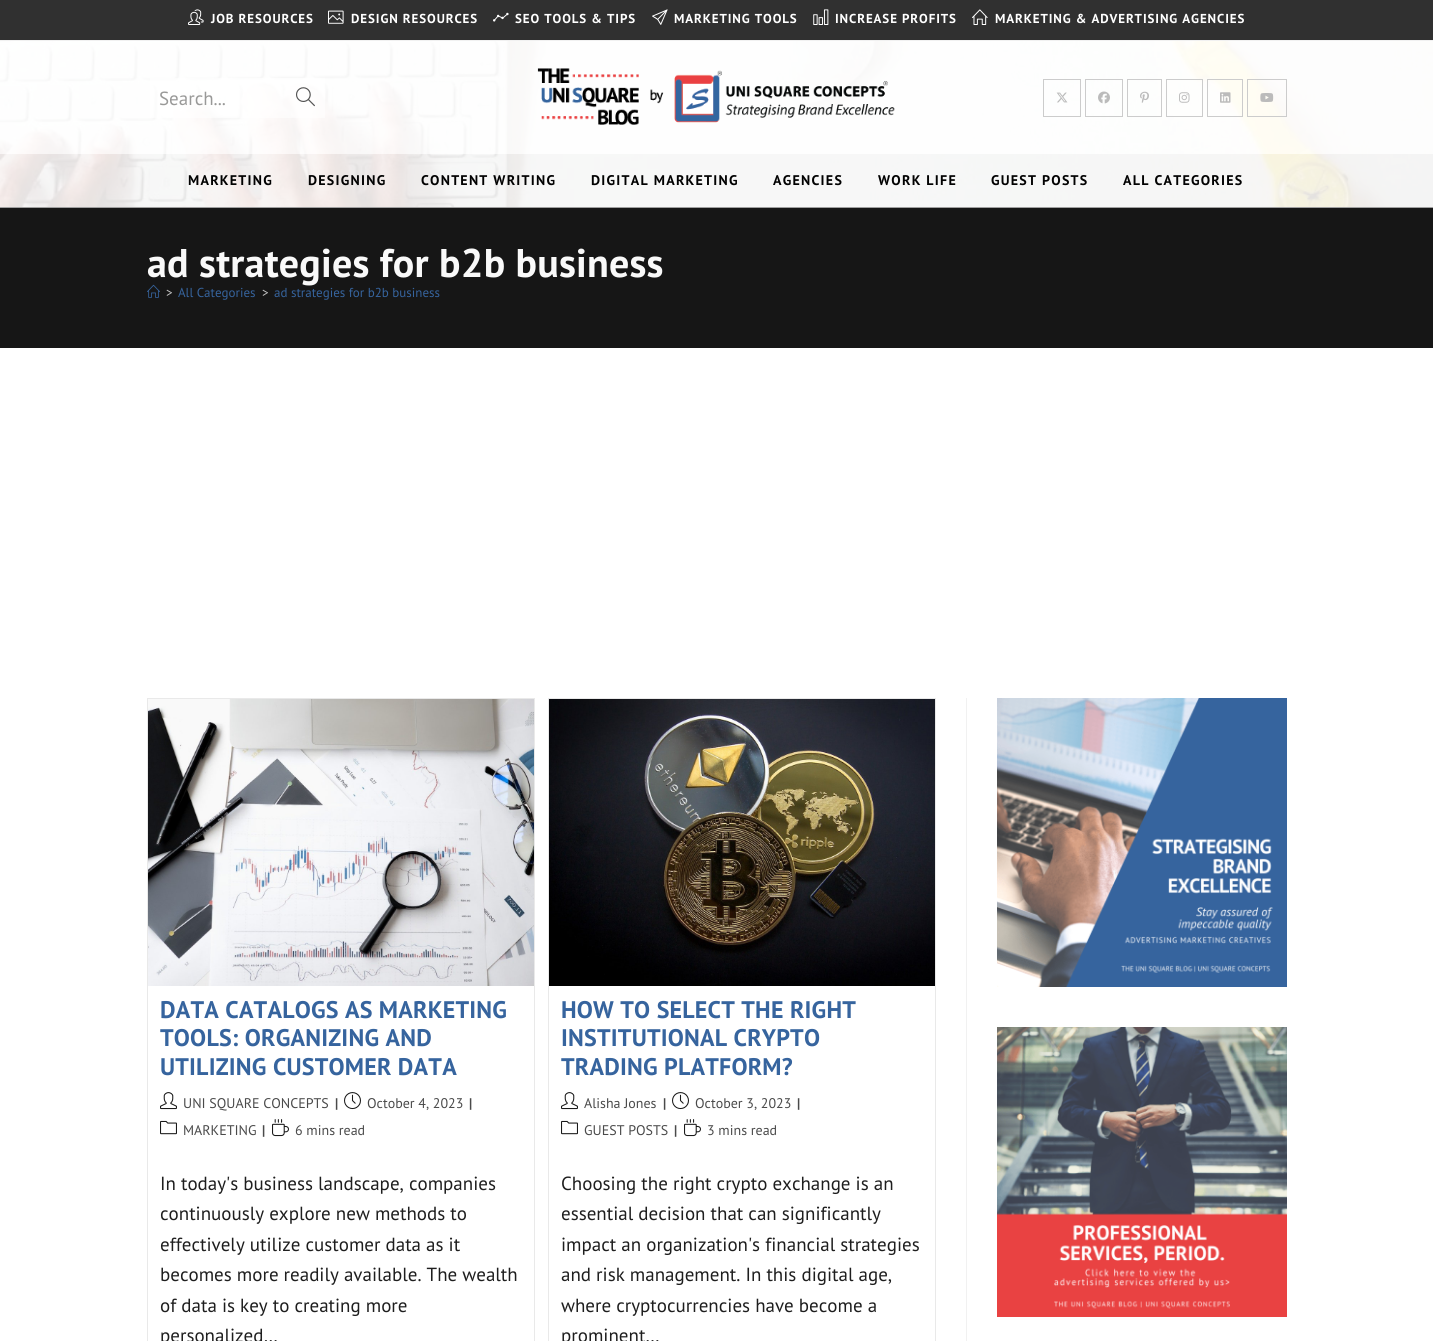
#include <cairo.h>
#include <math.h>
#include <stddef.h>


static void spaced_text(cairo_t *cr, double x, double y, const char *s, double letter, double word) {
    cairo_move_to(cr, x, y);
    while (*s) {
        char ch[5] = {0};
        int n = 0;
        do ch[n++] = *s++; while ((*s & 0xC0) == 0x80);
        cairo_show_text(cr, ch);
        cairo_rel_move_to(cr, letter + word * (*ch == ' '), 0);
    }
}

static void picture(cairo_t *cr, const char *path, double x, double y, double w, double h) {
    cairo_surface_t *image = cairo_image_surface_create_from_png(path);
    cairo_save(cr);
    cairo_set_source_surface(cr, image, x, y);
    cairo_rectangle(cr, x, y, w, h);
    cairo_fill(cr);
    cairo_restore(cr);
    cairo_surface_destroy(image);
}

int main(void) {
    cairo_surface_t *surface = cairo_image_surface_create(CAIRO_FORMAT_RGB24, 1433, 1341);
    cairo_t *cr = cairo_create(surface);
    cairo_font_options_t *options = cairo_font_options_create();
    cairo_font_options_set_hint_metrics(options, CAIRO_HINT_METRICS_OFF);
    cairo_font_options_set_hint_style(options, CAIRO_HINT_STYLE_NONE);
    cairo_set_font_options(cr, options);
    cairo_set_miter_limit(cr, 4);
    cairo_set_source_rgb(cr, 1, 1, 1);
    cairo_paint(cr);
    cairo_set_source_rgb(cr, 0.188, 0.188, 0.188);
    cairo_rectangle(cr, 0, 0, 1433, 40);
    cairo_fill(cr);
    cairo_set_source_rgb(cr, 0.945, 0.945, 0.945);
    cairo_rectangle(cr, 0, 40, 1433, 1);
    cairo_fill(cr);
    picture(cr, "img1.png", 188, 9, 16, 16);
    cairo_select_font_face(cr, "PT Sans", CAIRO_FONT_SLANT_NORMAL, CAIRO_FONT_WEIGHT_BOLD);
    cairo_set_font_size(cr, 13);
    cairo_set_source_rgb(cr, 1, 1, 1);
    spaced_text(cr, 211, 23, "JOB RESOURCES", 0.9, 0);
    picture(cr, "img2.png", 328, 10, 16, 14);
    spaced_text(cr, 351, 23, "DESIGN RESOURCES", 0.9, 0);
    picture(cr, "img3.png", 493, 12, 16, 10);
    spaced_text(cr, 515, 23, "SEO TOOLS & TIPS", 0.9, 0);
    picture(cr, "img4.png", 652, 9, 16, 16);
    spaced_text(cr, 674, 23, "MARKETING TOOLS", 0.9, 0);
    picture(cr, "img5.png", 813, 9, 16, 16);
    spaced_text(cr, 835, 23, "INCREASE PROFITS", 0.9, 0);
    picture(cr, "img6.png", 972, 9, 16, 16);
    spaced_text(cr, 995, 23, "MARKETING & ADVERTISING AGENCIES", 0.9, 0);
    picture(cr, "img7.png", 0, 41, 1433, 166);
    cairo_set_source_rgb(cr, 0.627, 0.627, 0.627);
    cairo_rectangle(cr, 0, 207, 1433, 1);
    cairo_fill(cr);
    cairo_set_source_rgba(cr, 1, 1, 1, 0.95);
    cairo_rectangle(cr, 0, 41, 1433, 113);
    cairo_fill(cr);
    cairo_set_source_rgba(cr, 1, 1, 1, 0.5);
    cairo_rectangle(cr, 150, 78, 175, 40);
    cairo_fill(cr);
    cairo_select_font_face(cr, "PT Sans", CAIRO_FONT_SLANT_NORMAL, CAIRO_FONT_WEIGHT_NORMAL);
    cairo_set_font_size(cr, 19);
    cairo_set_source_rgb(cr, 0.6, 0.6, 0.596);
    cairo_move_to(cr, 159, 105);
    cairo_show_text(cr, "Search...");
    picture(cr, "img8.png", 296, 87, 19, 20);
    picture(cr, "img9.png", 537, 68, 358, 57);
    cairo_rectangle(cr, 1043.5, 79.5, 37, 37);
    cairo_set_source_rgb(cr, 0.8, 0.8, 0.8);
    cairo_set_line_width(cr, 1);
    cairo_stroke(cr);
    picture(cr, "img10.png", 1056, 92, 12, 11);
    cairo_rectangle(cr, 1085.5, 79.5, 37, 37);
    cairo_stroke(cr);
    picture(cr, "img11.png", 1098, 91, 12, 13);
    cairo_rectangle(cr, 1127.5, 79.5, 34, 37);
    cairo_stroke(cr);
    picture(cr, "img12.png", 1140, 91, 9, 12);
    cairo_rectangle(cr, 1166.5, 79.5, 36, 37);
    cairo_stroke(cr);
    picture(cr, "img13.png", 1179, 92, 11, 11);
    cairo_rectangle(cr, 1207.5, 79.5, 35, 37);
    cairo_stroke(cr);
    picture(cr, "img14.png", 1220, 92, 11, 11);
    cairo_rectangle(cr, 1247.5, 79.5, 39, 37);
    cairo_stroke(cr);
    picture(cr, "img15.png", 1260, 93, 14, 9);
    cairo_set_source_rgba(cr, 0.976, 0.976, 0.976, 0.9);
    cairo_rectangle(cr, 0, 154, 1433, 53);
    cairo_fill(cr);
    cairo_select_font_face(cr, "PT Sans", CAIRO_FONT_SLANT_NORMAL, CAIRO_FONT_WEIGHT_BOLD);
    cairo_set_font_size(cr, 14);
    cairo_set_source_rgb(cr, 0.008, 0.008, 0.008);
    spaced_text(cr, 188, 185, "MARKETING", 1.25, 0);
    spaced_text(cr, 308, 185, "DESIGNING", 1.25, 0);
    spaced_text(cr, 421, 185, "CONTENT WRITING", 1.25, 0);
    spaced_text(cr, 591, 185, "DIGITAL MARKETING", 1.25, 0);
    spaced_text(cr, 773, 185, "AGENCIES", 1.25, 0);
    spaced_text(cr, 878, 185, "WORK LIFE", 1.25, 0);
    spaced_text(cr, 991, 185, "GUEST POSTS", 1.25, 0);
    spaced_text(cr, 1123, 185, "ALL CATEGORIES", 1.25, 0);
    cairo_set_source_rgb(cr, 0.086, 0.086, 0.086);
    cairo_rectangle(cr, 0, 208, 1433, 140);
    cairo_fill(cr);
    cairo_set_font_size(cr, 40);
    cairo_set_source_rgb(cr, 0.976, 0.976, 0.976);
    spaced_text(cr, 147, 277, "ad strategies for b2b business", 0.2, 0);
    picture(cr, "img16.png", 147, 284, 13, 14);
    cairo_select_font_face(cr, "PT Sans", CAIRO_FONT_SLANT_NORMAL, CAIRO_FONT_WEIGHT_NORMAL);
    cairo_set_font_size(cr, 13);
    cairo_set_source_rgb(cr, 0.776, 0.776, 0.776);
    cairo_move_to(cr, 166, 297);
    cairo_show_text(cr, ">");
    cairo_set_source_rgb(cr, 0.212, 0.392, 0.62);
    cairo_move_to(cr, 178, 297);
    cairo_show_text(cr, "All Categories");
    cairo_set_source_rgb(cr, 0.776, 0.776, 0.776);
    cairo_move_to(cr, 262, 297);
    cairo_show_text(cr, ">");
    cairo_set_source_rgb(cr, 0.212, 0.392, 0.62);
    cairo_move_to(cr, 274, 297);
    cairo_show_text(cr, "ad strategies for b2b business");
    cairo_set_source_rgb(cr, 0.945, 0.945, 0.945);
    cairo_rectangle(cr, 966, 698, 1, 643);
    cairo_fill(cr);
    cairo_rectangle(cr, 147.5, 698.5, 387, 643);
    cairo_set_source_rgb(cr, 0.914, 0.914, 0.914);
    cairo_stroke(cr);
    picture(cr, "img17.png", 148, 699, 386, 287);
    cairo_select_font_face(cr, "PT Sans", CAIRO_FONT_SLANT_NORMAL, CAIRO_FONT_WEIGHT_BOLD);
    cairo_set_font_size(cr, 24);
    cairo_set_source_rgb(cr, 0.212, 0.392, 0.62);
    spaced_text(cr, 160, 1018, "DATA CATALOGS AS MARKETING", 0.2, 0);
    spaced_text(cr, 160, 1046, "TOOLS: ORGANIZING AND", 0.2, 0);
    spaced_text(cr, 160, 1075, "UTILIZING CUSTOMER DATA", 0.2, 0);
    picture(cr, "img18.png", 160, 1092, 17, 18);
    cairo_select_font_face(cr, "PT Sans", CAIRO_FONT_SLANT_NORMAL, CAIRO_FONT_WEIGHT_NORMAL);
    cairo_set_font_size(cr, 14);
    cairo_set_source_rgb(cr, 0.29, 0.29, 0.29);
    cairo_move_to(cr, 183, 1108);
    cairo_show_text(cr, "UNI SQUARE CONCEPTS");
    cairo_select_font_face(cr, "PT Sans", CAIRO_FONT_SLANT_NORMAL, CAIRO_FONT_WEIGHT_BOLD);
    cairo_move_to(cr, 335, 1108);
    cairo_show_text(cr, "|");
    picture(cr, "img19.png", 344, 1092, 17, 18);
    cairo_select_font_face(cr, "PT Sans", CAIRO_FONT_SLANT_NORMAL, CAIRO_FONT_WEIGHT_NORMAL);
    cairo_move_to(cr, 367, 1108);
    cairo_show_text(cr, "October 4, 2023");
    cairo_select_font_face(cr, "PT Sans", CAIRO_FONT_SLANT_NORMAL, CAIRO_FONT_WEIGHT_BOLD);
    cairo_move_to(cr, 469, 1108);
    cairo_show_text(cr, "|");
    picture(cr, "img20.png", 160, 1120, 17, 15);
    cairo_select_font_face(cr, "PT Sans", CAIRO_FONT_SLANT_NORMAL, CAIRO_FONT_WEIGHT_NORMAL);
    cairo_move_to(cr, 183, 1135);
    cairo_show_text(cr, "MARKETING");
    cairo_select_font_face(cr, "PT Sans", CAIRO_FONT_SLANT_NORMAL, CAIRO_FONT_WEIGHT_BOLD);
    cairo_move_to(cr, 262, 1135);
    cairo_show_text(cr, "|");
    picture(cr, "img21.png", 272, 1119, 17, 18);
    cairo_select_font_face(cr, "PT Sans", CAIRO_FONT_SLANT_NORMAL, CAIRO_FONT_WEIGHT_NORMAL);
    cairo_move_to(cr, 295, 1135);
    cairo_show_text(cr, "6 mins read");
    cairo_set_font_size(cr, 19);
    cairo_set_source_rgb(cr, 0.118, 0.118, 0.118);
    cairo_move_to(cr, 160, 1190);
    cairo_show_text(cr, "In today's business landscape, companies");
    cairo_move_to(cr, 160, 1220);
    cairo_show_text(cr, "continuously explore new methods to");
    cairo_move_to(cr, 160, 1251);
    cairo_show_text(cr, "effectively utilize customer data as it");
    cairo_move_to(cr, 160, 1281);
    cairo_show_text(cr, "becomes more readily available. The wealth");
    cairo_move_to(cr, 160, 1312);
    cairo_show_text(cr, "of data is key to creating more");
    cairo_move_to(cr, 160, 1342);
    cairo_show_text(cr, "personalized…");
    cairo_rectangle(cr, 548.5, 698.5, 387, 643);
    cairo_set_source_rgb(cr, 0.914, 0.914, 0.914);
    cairo_stroke(cr);
    picture(cr, "img22.png", 549, 699, 386, 287);
    cairo_select_font_face(cr, "PT Sans", CAIRO_FONT_SLANT_NORMAL, CAIRO_FONT_WEIGHT_BOLD);
    cairo_set_font_size(cr, 24);
    cairo_set_source_rgb(cr, 0.212, 0.392, 0.62);
    spaced_text(cr, 561, 1018, "HOW TO SELECT THE RIGHT", 0.2, 0);
    spaced_text(cr, 561, 1046, "INSTITUTIONAL CRYPTO", 0.2, 0);
    spaced_text(cr, 561, 1075, "TRADING PLATFORM?", 0.2, 0);
    picture(cr, "img18.png", 561, 1092, 17, 18);
    cairo_select_font_face(cr, "PT Sans", CAIRO_FONT_SLANT_NORMAL, CAIRO_FONT_WEIGHT_NORMAL);
    cairo_set_font_size(cr, 14);
    cairo_set_source_rgb(cr, 0.29, 0.29, 0.29);
    cairo_move_to(cr, 584, 1108);
    cairo_show_text(cr, "Alisha Jones");
    cairo_select_font_face(cr, "PT Sans", CAIRO_FONT_SLANT_NORMAL, CAIRO_FONT_WEIGHT_BOLD);
    cairo_move_to(cr, 663, 1108);
    cairo_show_text(cr, "|");
    picture(cr, "img19.png", 672, 1092, 17, 18);
    cairo_select_font_face(cr, "PT Sans", CAIRO_FONT_SLANT_NORMAL, CAIRO_FONT_WEIGHT_NORMAL);
    cairo_move_to(cr, 695, 1108);
    cairo_show_text(cr, "October 3, 2023");
    cairo_select_font_face(cr, "PT Sans", CAIRO_FONT_SLANT_NORMAL, CAIRO_FONT_WEIGHT_BOLD);
    cairo_move_to(cr, 797, 1108);
    cairo_show_text(cr, "|");
    picture(cr, "img20.png", 561, 1120, 17, 15);
    cairo_select_font_face(cr, "PT Sans", CAIRO_FONT_SLANT_NORMAL, CAIRO_FONT_WEIGHT_NORMAL);
    cairo_move_to(cr, 584, 1135);
    cairo_show_text(cr, "GUEST POSTS");
    cairo_select_font_face(cr, "PT Sans", CAIRO_FONT_SLANT_NORMAL, CAIRO_FONT_WEIGHT_BOLD);
    cairo_move_to(cr, 674, 1135);
    cairo_show_text(cr, "|");
    picture(cr, "img21.png", 684, 1119, 17, 18);
    cairo_select_font_face(cr, "PT Sans", CAIRO_FONT_SLANT_NORMAL, CAIRO_FONT_WEIGHT_NORMAL);
    cairo_move_to(cr, 707, 1135);
    cairo_show_text(cr, "3 mins read");
    cairo_set_font_size(cr, 19);
    cairo_set_source_rgb(cr, 0.118, 0.118, 0.118);
    cairo_move_to(cr, 561, 1190);
    cairo_show_text(cr, "Choosing the right crypto exchange is an");
    cairo_move_to(cr, 561, 1220);
    cairo_show_text(cr, "essential decision that can significantly");
    cairo_move_to(cr, 561, 1251);
    cairo_show_text(cr, "impact an organization's financial strategies");
    cairo_move_to(cr, 561, 1281);
    cairo_show_text(cr, "and risk management. In this digital age,");
    cairo_move_to(cr, 561, 1312);
    cairo_show_text(cr, "where cryptocurrencies have become a");
    cairo_move_to(cr, 561, 1342);
    cairo_show_text(cr, "prominent…");
    picture(cr, "img23.png", 997, 698, 290, 289);
    picture(cr, "img24.png", 997, 1027, 290, 290);
    cairo_surface_write_to_png(surface, "page.png");
    cairo_font_options_destroy(options);
    cairo_destroy(cr);
    cairo_surface_destroy(surface);
    return 0;
}
